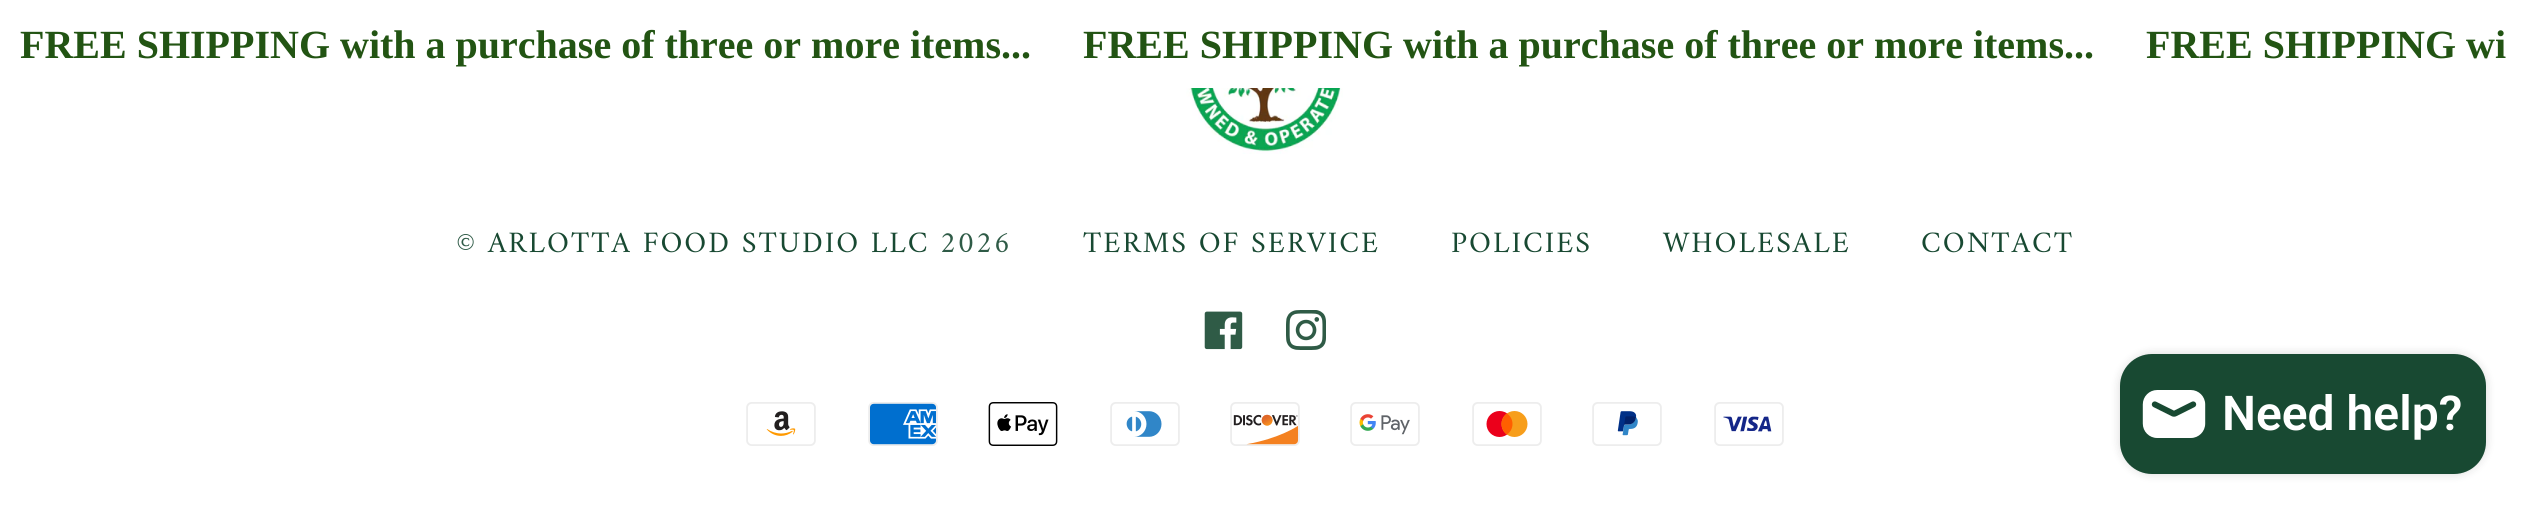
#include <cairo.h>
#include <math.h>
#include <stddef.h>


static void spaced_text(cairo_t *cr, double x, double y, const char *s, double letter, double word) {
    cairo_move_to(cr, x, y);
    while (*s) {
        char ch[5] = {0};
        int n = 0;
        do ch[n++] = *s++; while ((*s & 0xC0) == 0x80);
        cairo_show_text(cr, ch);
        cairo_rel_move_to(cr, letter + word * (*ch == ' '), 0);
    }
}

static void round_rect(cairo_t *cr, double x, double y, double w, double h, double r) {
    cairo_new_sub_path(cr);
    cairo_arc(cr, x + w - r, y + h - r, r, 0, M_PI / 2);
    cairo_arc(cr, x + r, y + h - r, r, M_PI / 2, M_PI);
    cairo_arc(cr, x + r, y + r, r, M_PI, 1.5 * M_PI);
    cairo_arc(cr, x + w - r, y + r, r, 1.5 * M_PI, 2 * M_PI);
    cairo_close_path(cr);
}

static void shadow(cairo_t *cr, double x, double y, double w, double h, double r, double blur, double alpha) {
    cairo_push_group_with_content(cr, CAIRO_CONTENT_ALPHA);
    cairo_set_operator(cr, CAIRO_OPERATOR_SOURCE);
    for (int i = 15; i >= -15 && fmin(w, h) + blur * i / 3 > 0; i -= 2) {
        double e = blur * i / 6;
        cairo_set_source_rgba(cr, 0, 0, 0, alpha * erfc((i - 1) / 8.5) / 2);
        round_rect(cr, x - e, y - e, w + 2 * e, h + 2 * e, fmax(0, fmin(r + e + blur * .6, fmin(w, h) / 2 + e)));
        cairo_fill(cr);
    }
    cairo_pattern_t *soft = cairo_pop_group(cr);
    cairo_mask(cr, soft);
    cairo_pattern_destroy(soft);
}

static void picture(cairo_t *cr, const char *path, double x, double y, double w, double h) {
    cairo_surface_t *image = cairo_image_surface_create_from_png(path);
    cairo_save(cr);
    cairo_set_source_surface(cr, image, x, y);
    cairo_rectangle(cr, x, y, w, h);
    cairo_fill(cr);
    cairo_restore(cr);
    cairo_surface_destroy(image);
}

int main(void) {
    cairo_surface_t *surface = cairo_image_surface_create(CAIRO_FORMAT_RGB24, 2530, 516);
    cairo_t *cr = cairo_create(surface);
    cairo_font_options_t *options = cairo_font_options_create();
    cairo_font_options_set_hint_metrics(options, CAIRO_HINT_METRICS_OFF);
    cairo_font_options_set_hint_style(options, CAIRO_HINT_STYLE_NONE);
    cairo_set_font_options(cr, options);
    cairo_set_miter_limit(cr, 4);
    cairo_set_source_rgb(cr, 1, 1, 1);
    cairo_paint(cr);
    cairo_select_font_face(cr, "Liberation Serif", CAIRO_FONT_SLANT_NORMAL, CAIRO_FONT_WEIGHT_BOLD);
    cairo_set_font_size(cr, 40);
    cairo_set_source_rgb(cr, 0.133, 0.329, 0.078);
    cairo_move_to(cr, 20, 58);
    cairo_show_text(cr, "FREE SHIPPING with a purchase of three or more items...");
    cairo_move_to(cr, 1083, 58);
    cairo_show_text(cr, "FREE SHIPPING with a purchase of three or more items...");
    cairo_move_to(cr, 2146, 58);
    cairo_show_text(cr, "FREE SHIPPING wi");
    picture(cr, "img1.png", 1186, 88, 157, 66);
    cairo_select_font_face(cr, "Amiri", CAIRO_FONT_SLANT_NORMAL, CAIRO_FONT_WEIGHT_NORMAL);
    cairo_set_font_size(cr, 30);
    cairo_set_source_rgb(cr, 0.184, 0.357, 0.278);
    spaced_text(cr, 456, 252, "©", 2, 0);
    cairo_set_source_rgb(cr, 0.094, 0.286, 0.196);
    spaced_text(cr, 488, 252, "ARLOTTA FOOD STUDIO LLC", 2, 0);
    cairo_set_source_rgb(cr, 0.184, 0.357, 0.278);
    spaced_text(cr, 940, 252, "2026", 2, 0);
    cairo_set_source_rgb(cr, 0.094, 0.286, 0.196);
    spaced_text(cr, 1083, 252, "TERMS OF SERVICE", 2, 0);
    spaced_text(cr, 1451, 252, "POLICIES", 2, 0);
    spaced_text(cr, 1663, 252, "WHOLESALE", 2, 0);
    spaced_text(cr, 1921, 252, "CONTACT", 2, 0);
    picture(cr, "img2.png", 1204, 311, 39, 39);
    picture(cr, "img3.png", 1286, 310, 40, 40);
    picture(cr, "img4.png", 746, 402, 70, 44);
    picture(cr, "img5.png", 868, 402, 70, 44);
    picture(cr, "img6.png", 988, 402, 70, 44);
    picture(cr, "img7.png", 1110, 402, 70, 44);
    picture(cr, "img8.png", 1230, 402, 70, 44);
    picture(cr, "img9.png", 1350, 402, 70, 44);
    picture(cr, "img10.png", 1472, 402, 70, 44);
    picture(cr, "img11.png", 1592, 402, 70, 44);
    picture(cr, "img12.png", 1714, 402, 70, 44);
    cairo_set_source_rgb(cr, 0, 0, 0);
    shadow(cr, 2120, 354, 366, 120, 32, 5, 0.15);
    cairo_set_source_rgb(cr, 0.094, 0.286, 0.196);
    round_rect(cr, 2120, 354, 366, 120, 32);
    cairo_fill(cr);
    picture(cr, "img13.png", 2142, 390, 64, 48);
    cairo_select_font_face(cr, "Roboto SemiBold", CAIRO_FONT_SLANT_NORMAL, CAIRO_FONT_WEIGHT_NORMAL);
    cairo_set_font_size(cr, 48);
    cairo_set_source_rgb(cr, 1, 1, 1);
    cairo_move_to(cr, 2222, 430);
    cairo_show_text(cr, "Need help?");
    cairo_surface_write_to_png(surface, "page.png");
    cairo_font_options_destroy(options);
    cairo_destroy(cr);
    cairo_surface_destroy(surface);
    return 0;
}
